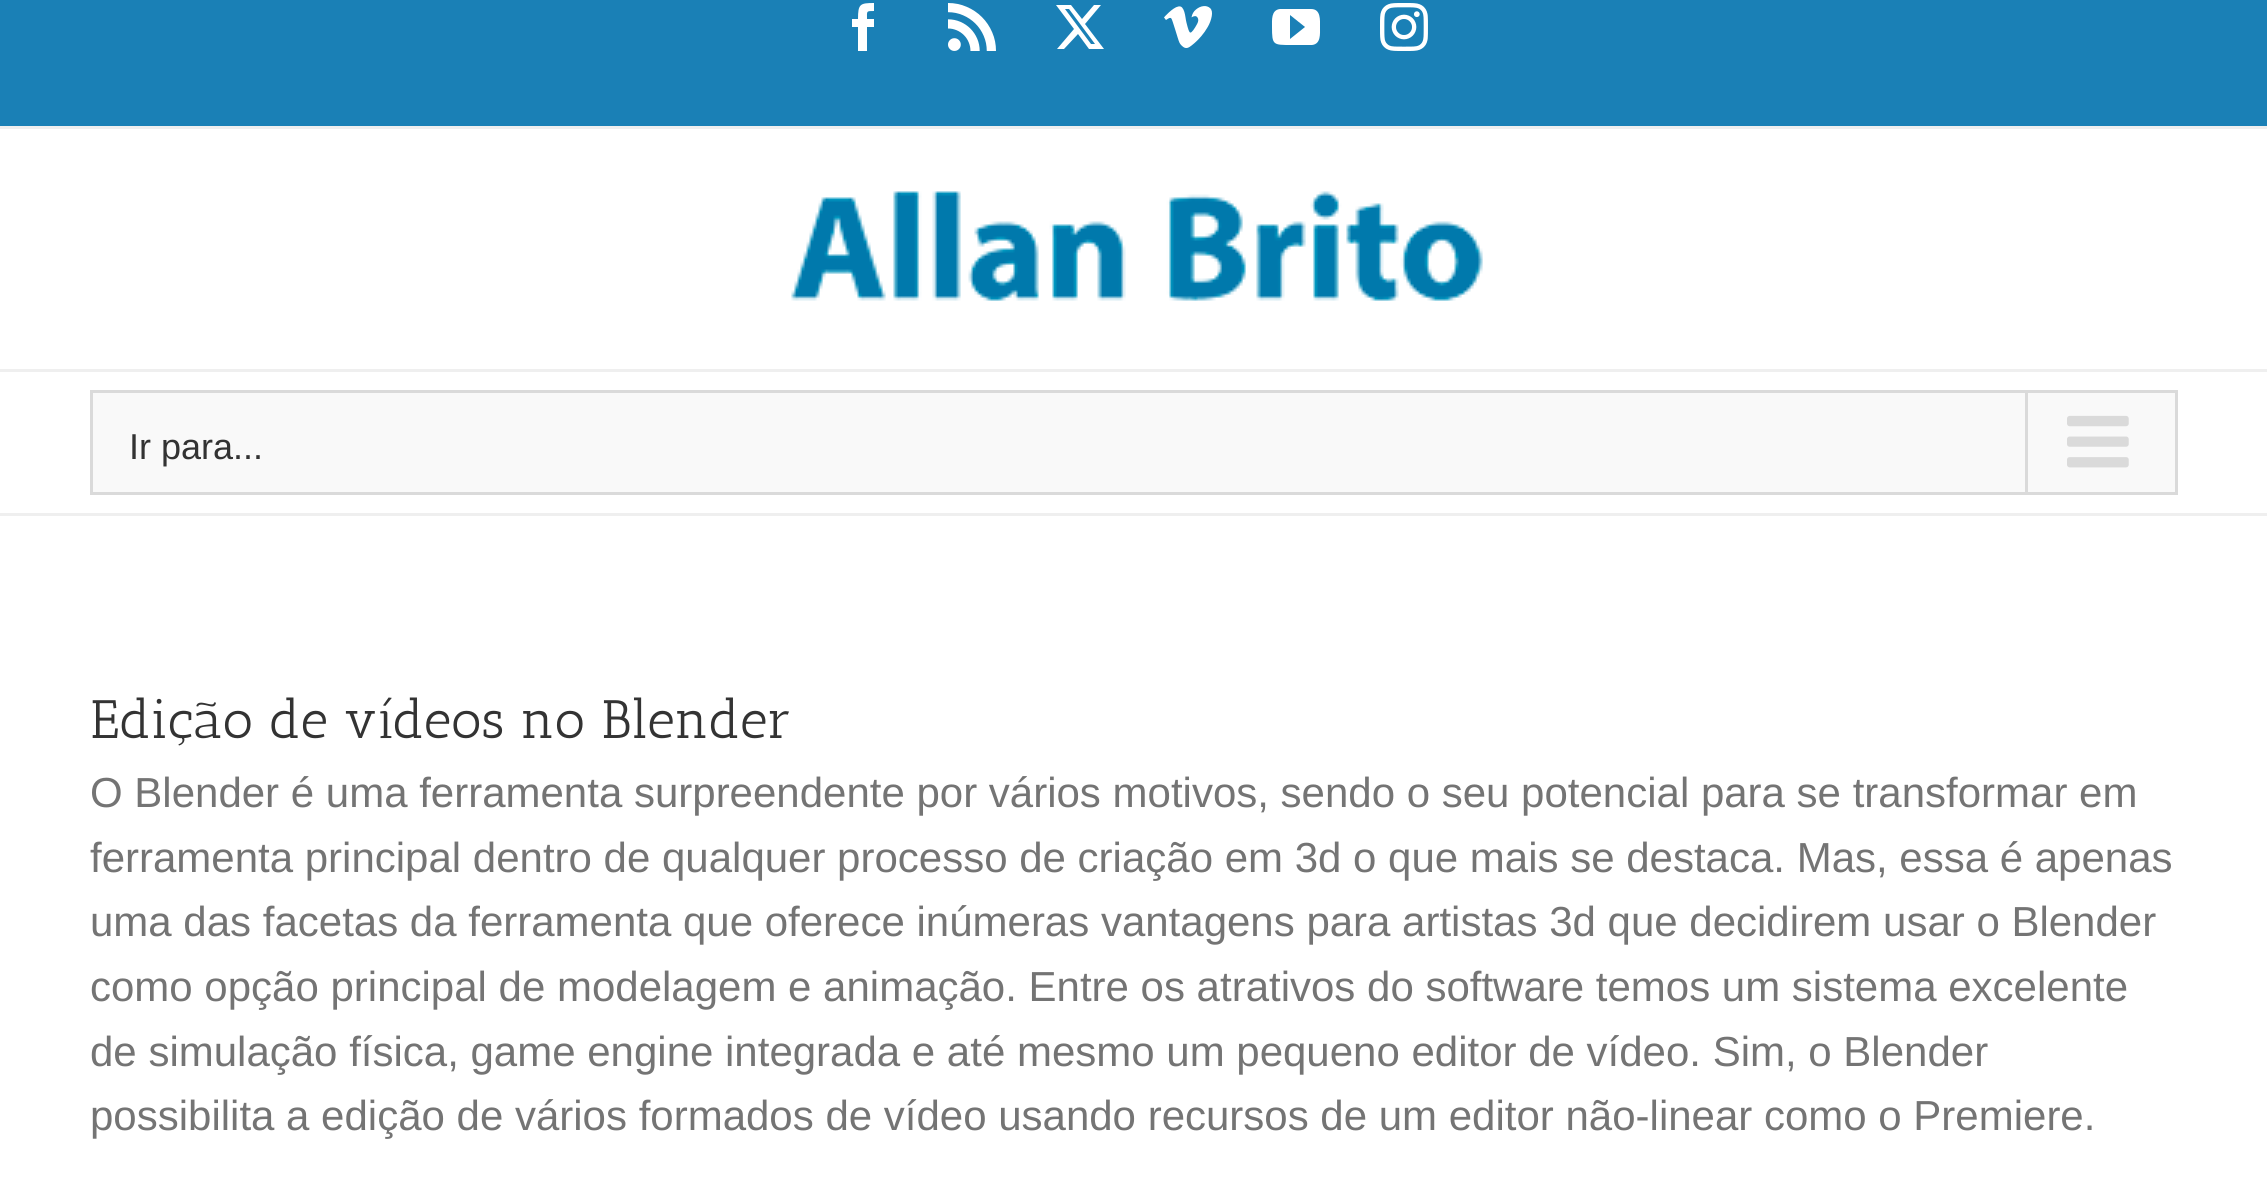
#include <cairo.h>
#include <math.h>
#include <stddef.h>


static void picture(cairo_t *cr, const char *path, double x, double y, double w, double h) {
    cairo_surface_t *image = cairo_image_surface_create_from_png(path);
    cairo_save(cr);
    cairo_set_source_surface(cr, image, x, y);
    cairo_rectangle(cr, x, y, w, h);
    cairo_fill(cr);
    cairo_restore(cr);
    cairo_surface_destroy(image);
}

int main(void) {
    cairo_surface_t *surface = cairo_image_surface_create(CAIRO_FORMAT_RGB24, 2267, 1190);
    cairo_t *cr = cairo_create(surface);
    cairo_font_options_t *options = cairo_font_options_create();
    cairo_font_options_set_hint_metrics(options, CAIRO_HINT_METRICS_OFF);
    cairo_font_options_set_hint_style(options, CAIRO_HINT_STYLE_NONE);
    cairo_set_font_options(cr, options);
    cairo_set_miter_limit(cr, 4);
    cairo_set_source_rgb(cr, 1, 1, 1);
    cairo_paint(cr);
    cairo_set_source_rgb(cr, 0.102, 0.502, 0.714);
    cairo_rectangle(cr, 0, 0, 2267, 126);
    cairo_fill(cr);
    cairo_set_source_rgb(cr, 0.937, 0.937, 0.937);
    cairo_rectangle(cr, 0, 126, 2267, 3);
    cairo_fill(cr);
    cairo_set_source_rgb(cr, 1, 1, 1);
    cairo_new_path(cr);
    cairo_move_to(cr, 867, 51);
    cairo_line_to(cr, 858, 51);
    cairo_line_to(cr, 858, 27);
    cairo_line_to(cr, 852, 27);
    cairo_line_to(cr, 852, 19);
    cairo_line_to(cr, 858, 19);
    cairo_curve_to(cr, 858, 4, 860, 3, 874, 3);
    cairo_line_to(cr, 874, 11);
    cairo_curve_to(cr, 866, 11, 867, 11, 867, 19);
    cairo_line_to(cr, 874, 19);
    cairo_line_to(cr, 874, 27);
    cairo_line_to(cr, 867, 27);
    cairo_close_path(cr);
    cairo_fill(cr);
    picture(cr, "img1.png", 948, 3, 48, 48);
    cairo_new_path(cr);
    cairo_move_to(cr, 1094, 5);
    cairo_line_to(cr, 1101, 5);
    cairo_line_to(cr, 1085, 24);
    cairo_line_to(cr, 1104, 49);
    cairo_line_to(cr, 1089, 49);
    cairo_line_to(cr, 1078, 34);
    cairo_line_to(cr, 1064, 49);
    cairo_line_to(cr, 1057, 49);
    cairo_line_to(cr, 1074, 29);
    cairo_line_to(cr, 1056, 5);
    cairo_line_to(cr, 1071, 5);
    cairo_line_to(cr, 1082, 19);
    cairo_close_path(cr);
    cairo_move_to(cr, 1091, 44);
    cairo_line_to(cr, 1095, 44);
    cairo_line_to(cr, 1069, 9);
    cairo_line_to(cr, 1065, 9);
    cairo_close_path(cr);
    cairo_fill(cr);
    picture(cr, "img2.png", 1164, 6, 48, 42);
    cairo_new_path(cr);
    cairo_move_to(cr, 1311, 9);
    cairo_line_to(cr, 1280, 9);
    cairo_curve_to(cr, 1271, 10, 1272, 20, 1272, 27);
    cairo_curve_to(cr, 1272, 45, 1273, 45, 1291, 45);
    cairo_line_to(cr, 1312, 45);
    cairo_curve_to(cr, 1321, 44, 1320, 34, 1320, 27);
    cairo_curve_to(cr, 1320, 20, 1321, 9, 1311, 9);
    cairo_close_path(cr);
    cairo_move_to(cr, 1290, 39);
    cairo_line_to(cr, 1290, 15);
    cairo_line_to(cr, 1305, 27);
    cairo_close_path(cr);
    cairo_fill(cr);
    picture(cr, "img3.png", 1380, 3, 48, 48);
    cairo_set_source_rgb(cr, 0.937, 0.937, 0.937);
    cairo_rectangle(cr, 0, 369, 2267, 3);
    cairo_fill(cr);
    picture(cr, "img4.png", 791, 191, 692, 110);
    cairo_rectangle(cr, 0, 513, 2267, 3);
    cairo_fill(cr);
    cairo_set_source_rgb(cr, 0.976, 0.976, 0.976);
    cairo_rectangle(cr, 91.5, 391.5, 2085, 102);
    cairo_fill_preserve(cr);
    cairo_set_source_rgb(cr, 0.855, 0.855, 0.855);
    cairo_set_line_width(cr, 3);
    cairo_stroke(cr);
    cairo_select_font_face(cr, "Liberation Sans", CAIRO_FONT_SLANT_NORMAL, CAIRO_FONT_WEIGHT_NORMAL);
    cairo_set_font_size(cr, 36);
    cairo_set_source_rgb(cr, 0.2, 0.2, 0.2);
    cairo_move_to(cr, 129, 459);
    cairo_show_text(cr, "Ir para...");
    cairo_set_source_rgb(cr, 0.855, 0.855, 0.855);
    cairo_rectangle(cr, 2025, 393, 3, 99);
    cairo_fill(cr);
    picture(cr, "img5.png", 2067, 415, 62, 53);
    cairo_select_font_face(cr, "Antic Slab", CAIRO_FONT_SLANT_NORMAL, CAIRO_FONT_WEIGHT_NORMAL);
    cairo_set_font_size(cr, 54);
    cairo_set_source_rgb(cr, 0.2, 0.2, 0.2);
    cairo_move_to(cr, 90, 738);
    cairo_show_text(cr, "Edição de vídeos no Blender");
    cairo_select_font_face(cr, "Liberation Sans", CAIRO_FONT_SLANT_NORMAL, CAIRO_FONT_WEIGHT_NORMAL);
    cairo_set_font_size(cr, 42);
    cairo_set_source_rgb(cr, 0.455, 0.455, 0.455);
    cairo_move_to(cr, 90, 807);
    cairo_show_text(cr, "O Blender é uma ferramenta surpreendente por vários motivos, sendo o seu potencial para se transformar em");
    cairo_move_to(cr, 90, 872);
    cairo_show_text(cr, "ferramenta principal dentro de qualquer processo de criação em 3d o que mais se destaca. Mas, essa é apenas");
    cairo_move_to(cr, 90, 936);
    cairo_show_text(cr, "uma das facetas da ferramenta que oferece inúmeras vantagens para artistas 3d que decidirem usar o Blender");
    cairo_move_to(cr, 90, 1001);
    cairo_show_text(cr, "como opção principal de modelagem e animação. Entre os atrativos do software temos um sistema excelente");
    cairo_move_to(cr, 90, 1066);
    cairo_show_text(cr, "de simulação física, game engine integrada e até mesmo um pequeno editor de vídeo. Sim, o Blender");
    cairo_move_to(cr, 90, 1130);
    cairo_show_text(cr, "possibilita a edição de vários formados de vídeo usando recursos de um editor não-linear como o Premiere.");
    cairo_surface_write_to_png(surface, "page.png");
    cairo_font_options_destroy(options);
    cairo_destroy(cr);
    cairo_surface_destroy(surface);
    return 0;
}
